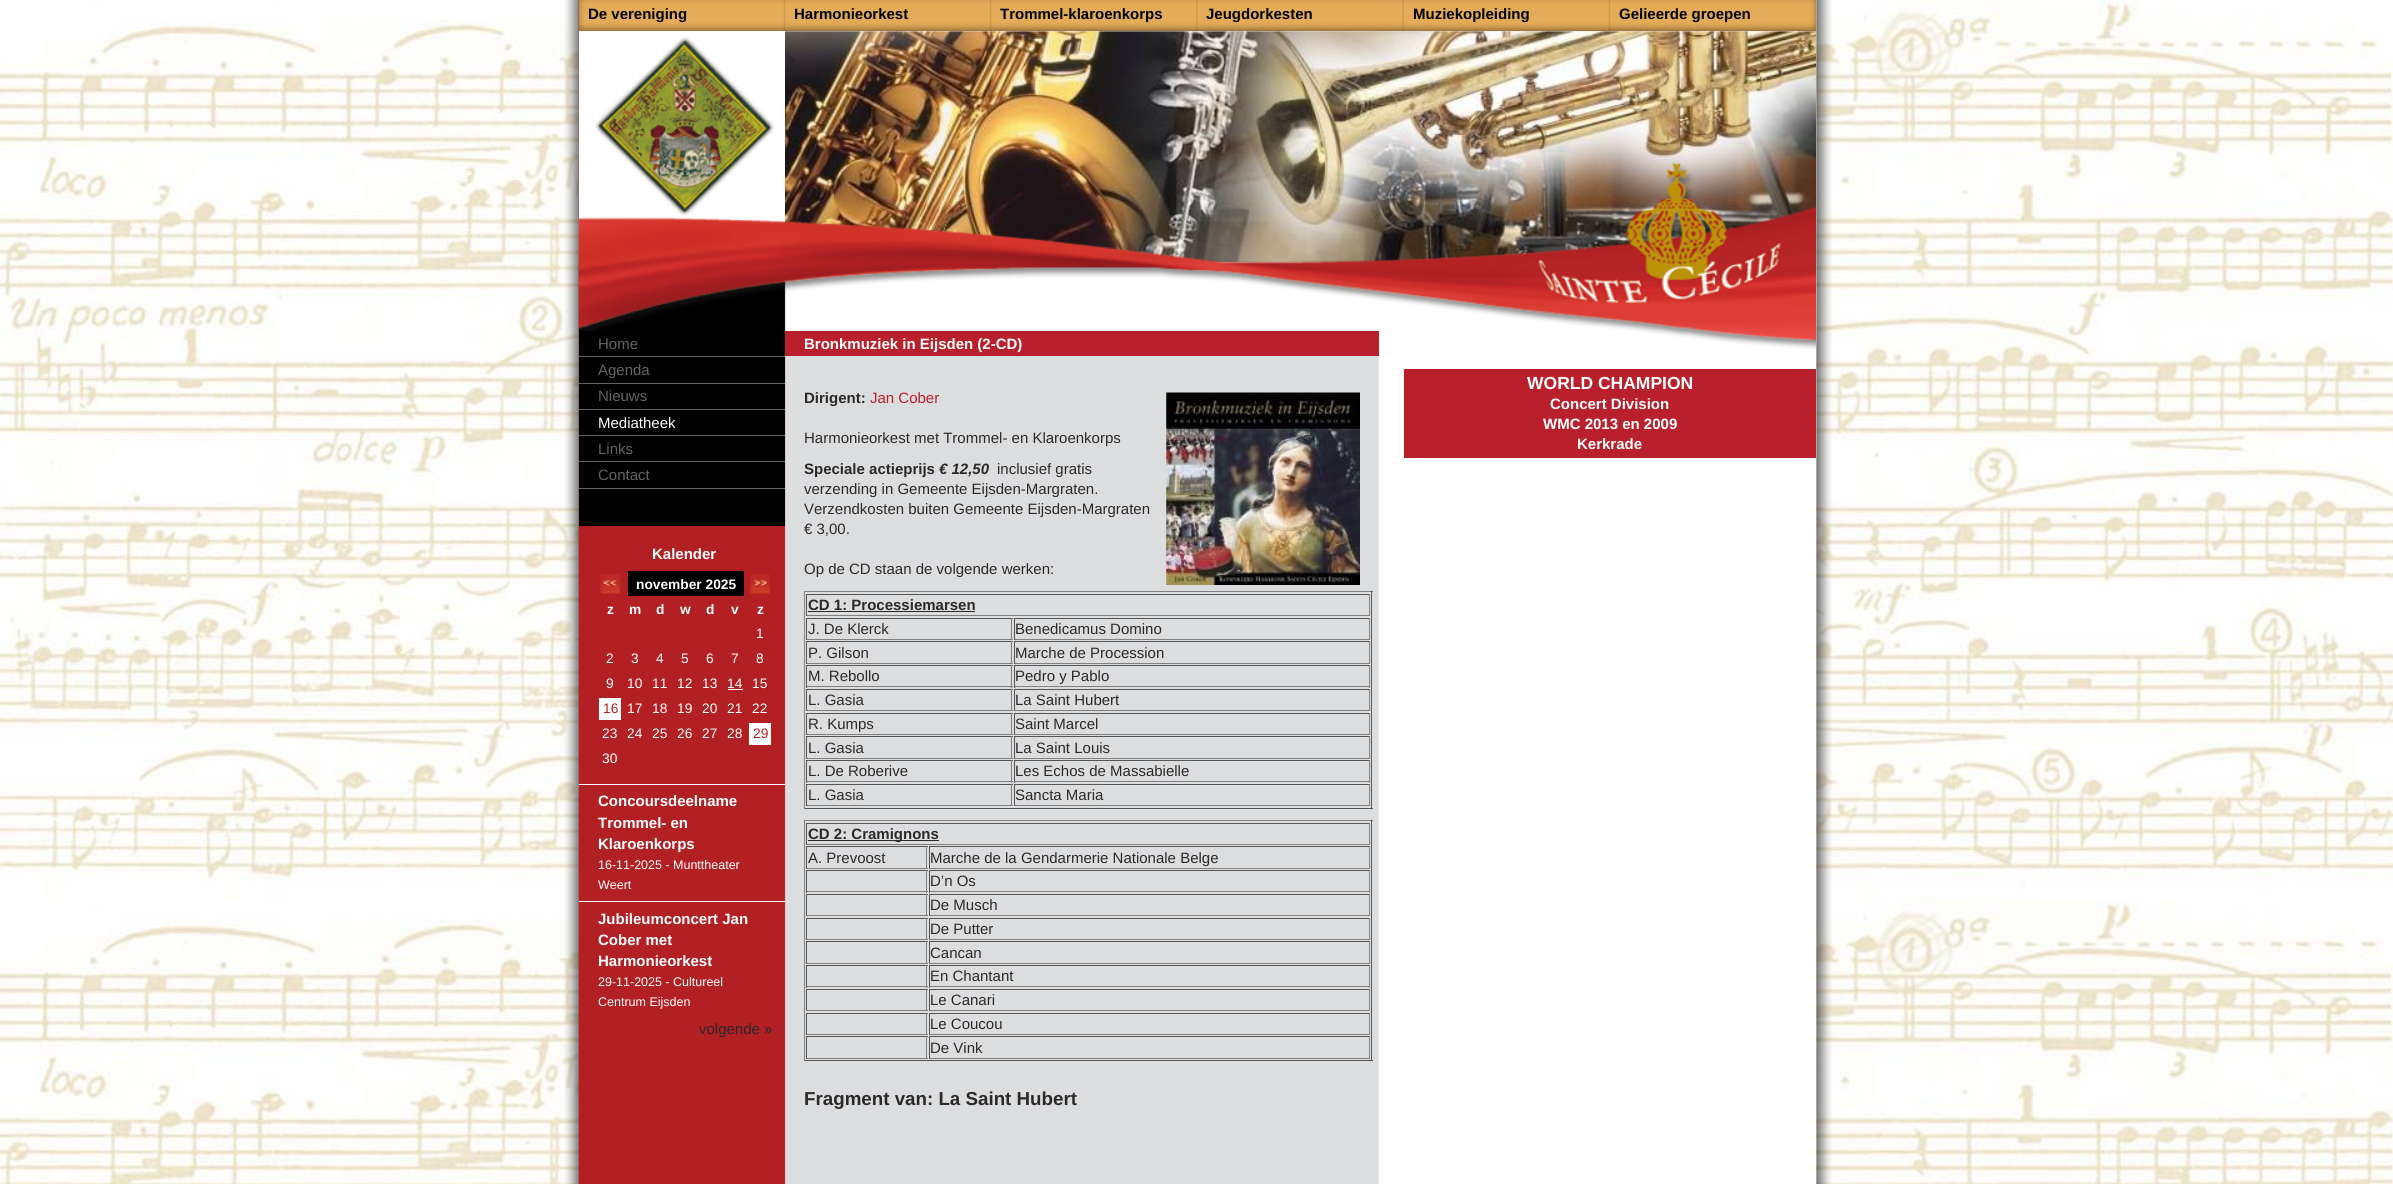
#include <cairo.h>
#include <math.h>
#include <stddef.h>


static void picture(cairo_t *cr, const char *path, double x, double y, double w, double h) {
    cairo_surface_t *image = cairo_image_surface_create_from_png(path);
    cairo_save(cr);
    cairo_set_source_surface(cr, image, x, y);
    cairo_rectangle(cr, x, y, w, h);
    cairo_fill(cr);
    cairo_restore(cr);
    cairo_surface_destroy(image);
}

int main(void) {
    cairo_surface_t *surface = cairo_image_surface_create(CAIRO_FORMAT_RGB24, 2393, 1184);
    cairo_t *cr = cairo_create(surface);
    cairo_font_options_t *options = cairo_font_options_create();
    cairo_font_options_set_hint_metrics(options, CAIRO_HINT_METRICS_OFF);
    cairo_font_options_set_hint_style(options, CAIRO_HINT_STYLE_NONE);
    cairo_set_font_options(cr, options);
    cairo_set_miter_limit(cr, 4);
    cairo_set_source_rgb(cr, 1, 1, 1);
    cairo_paint(cr);
    picture(cr, "img1.png", 0, 0, 2393, 1184);
    picture(cr, "img2.png", 564, 0, 1268, 1184);
    picture(cr, "img7.png", 578, 262, 1239, 70);
    cairo_set_source_rgb(cr, 1, 1, 1);
    cairo_rectangle(cr, 579, 31, 800, 232);
    cairo_fill(cr);
    picture(cr, "img3.png", 579, 0, 1238, 32);
    cairo_select_font_face(cr, "Liberation Sans", CAIRO_FONT_SLANT_NORMAL, CAIRO_FONT_WEIGHT_BOLD);
    cairo_set_font_size(cr, 15);
    cairo_set_source_rgb(cr, 0, 0, 0);
    cairo_move_to(cr, 588, 19);
    cairo_show_text(cr, "De vereniging");
    cairo_move_to(cr, 794, 19);
    cairo_show_text(cr, "Harmonieorkest");
    cairo_move_to(cr, 1000, 19);
    cairo_show_text(cr, "Trommel-klaroenkorps");
    cairo_move_to(cr, 1206, 19);
    cairo_show_text(cr, "Jeugdorkesten");
    cairo_move_to(cr, 1413, 19);
    cairo_show_text(cr, "Muziekopleiding");
    cairo_move_to(cr, 1619, 19);
    cairo_show_text(cr, "Gelieerde groepen");
    picture(cr, "img4.png", 578, 31, 207, 232);
    picture(cr, "img5.png", 785, 31, 1032, 232);
    picture(cr, "img6.png", 579, 162, 1237, 187);
    cairo_rectangle(cr, 579, 331, 206, 195);
    cairo_fill(cr);
    cairo_set_source_rgb(cr, 0.384, 0.388, 0.4);
    cairo_rectangle(cr, 579, 356, 206, 1);
    cairo_fill(cr);
    cairo_select_font_face(cr, "Liberation Sans", CAIRO_FONT_SLANT_NORMAL, CAIRO_FONT_WEIGHT_NORMAL);
    cairo_move_to(cr, 598, 349);
    cairo_show_text(cr, "Home");
    cairo_rectangle(cr, 579, 383, 206, 1);
    cairo_fill(cr);
    cairo_move_to(cr, 598, 375);
    cairo_show_text(cr, "Agenda");
    cairo_rectangle(cr, 579, 409, 206, 1);
    cairo_fill(cr);
    cairo_move_to(cr, 598, 401);
    cairo_show_text(cr, "Nieuws");
    cairo_rectangle(cr, 579, 435, 206, 1);
    cairo_fill(cr);
    cairo_set_source_rgb(cr, 1, 1, 1);
    cairo_move_to(cr, 598, 428);
    cairo_show_text(cr, "Mediatheek");
    cairo_set_source_rgb(cr, 0.384, 0.388, 0.4);
    cairo_rectangle(cr, 579, 461, 206, 1);
    cairo_fill(cr);
    cairo_move_to(cr, 598, 454);
    cairo_show_text(cr, "Links");
    cairo_rectangle(cr, 579, 488, 206, 1);
    cairo_fill(cr);
    cairo_move_to(cr, 598, 480);
    cairo_show_text(cr, "Contact");
    cairo_select_font_face(cr, "Liberation Sans", CAIRO_FONT_SLANT_NORMAL, CAIRO_FONT_WEIGHT_BOLD);
    cairo_set_source_rgb(cr, 1, 1, 1);
    cairo_move_to(cr, 652, 559);
    cairo_show_text(cr, "Kalender");
    picture(cr, "img8.png", 600, 574, 21, 20);
    cairo_set_source_rgb(cr, 0, 0, 0);
    cairo_rectangle(cr, 628, 571, 116, 25);
    cairo_fill(cr);
    cairo_set_font_size(cr, 13.75);
    cairo_set_source_rgb(cr, 1, 1, 1);
    cairo_move_to(cr, 636, 589);
    cairo_show_text(cr, "november 2025");
    picture(cr, "img9.png", 750, 574, 20, 20);
    cairo_move_to(cr, 607, 614);
    cairo_show_text(cr, "z");
    cairo_move_to(cr, 629, 614);
    cairo_show_text(cr, "m");
    cairo_move_to(cr, 656, 614);
    cairo_show_text(cr, "d");
    cairo_move_to(cr, 680, 614);
    cairo_show_text(cr, "w");
    cairo_move_to(cr, 706, 614);
    cairo_show_text(cr, "d");
    cairo_move_to(cr, 731, 614);
    cairo_show_text(cr, "v");
    cairo_move_to(cr, 757, 614);
    cairo_show_text(cr, "z");
    cairo_select_font_face(cr, "Liberation Sans", CAIRO_FONT_SLANT_NORMAL, CAIRO_FONT_WEIGHT_NORMAL);
    cairo_move_to(cr, 756, 638);
    cairo_show_text(cr, "1");
    cairo_move_to(cr, 606, 663);
    cairo_show_text(cr, "2");
    cairo_move_to(cr, 631, 663);
    cairo_show_text(cr, "3");
    cairo_move_to(cr, 656, 663);
    cairo_show_text(cr, "4");
    cairo_move_to(cr, 681, 663);
    cairo_show_text(cr, "5");
    cairo_move_to(cr, 706, 663);
    cairo_show_text(cr, "6");
    cairo_move_to(cr, 731, 663);
    cairo_show_text(cr, "7");
    cairo_move_to(cr, 756, 663);
    cairo_show_text(cr, "8");
    cairo_move_to(cr, 606, 688);
    cairo_show_text(cr, "9");
    cairo_move_to(cr, 627, 688);
    cairo_show_text(cr, "10");
    cairo_move_to(cr, 652, 688);
    cairo_show_text(cr, "11");
    cairo_move_to(cr, 677, 688);
    cairo_show_text(cr, "12");
    cairo_move_to(cr, 702, 688);
    cairo_show_text(cr, "13");
    cairo_move_to(cr, 727, 688);
    cairo_show_text(cr, "14");
    cairo_rectangle(cr, 728, 689, 15, 1);
    cairo_fill(cr);
    cairo_move_to(cr, 752, 688);
    cairo_show_text(cr, "15");
    cairo_rectangle(cr, 599, 698, 22, 22);
    cairo_fill(cr);
    cairo_set_source_rgb(cr, 0.702, 0.125, 0.141);
    cairo_move_to(cr, 603, 713);
    cairo_show_text(cr, "16");
    cairo_set_source_rgb(cr, 1, 1, 1);
    cairo_move_to(cr, 627, 713);
    cairo_show_text(cr, "17");
    cairo_move_to(cr, 652, 713);
    cairo_show_text(cr, "18");
    cairo_move_to(cr, 677, 713);
    cairo_show_text(cr, "19");
    cairo_move_to(cr, 702, 713);
    cairo_show_text(cr, "20");
    cairo_move_to(cr, 727, 713);
    cairo_show_text(cr, "21");
    cairo_move_to(cr, 752, 713);
    cairo_show_text(cr, "22");
    cairo_move_to(cr, 602, 738);
    cairo_show_text(cr, "23");
    cairo_move_to(cr, 627, 738);
    cairo_show_text(cr, "24");
    cairo_move_to(cr, 652, 738);
    cairo_show_text(cr, "25");
    cairo_move_to(cr, 677, 738);
    cairo_show_text(cr, "26");
    cairo_move_to(cr, 702, 738);
    cairo_show_text(cr, "27");
    cairo_move_to(cr, 727, 738);
    cairo_show_text(cr, "28");
    cairo_rectangle(cr, 749, 723, 22, 22);
    cairo_fill(cr);
    cairo_set_source_rgb(cr, 0.702, 0.125, 0.141);
    cairo_move_to(cr, 753, 738);
    cairo_show_text(cr, "29");
    cairo_set_source_rgb(cr, 1, 1, 1);
    cairo_move_to(cr, 602, 763);
    cairo_show_text(cr, "30");
    cairo_rectangle(cr, 579, 784, 206, 1);
    cairo_fill(cr);
    cairo_select_font_face(cr, "Liberation Sans", CAIRO_FONT_SLANT_NORMAL, CAIRO_FONT_WEIGHT_BOLD);
    cairo_set_font_size(cr, 15);
    cairo_move_to(cr, 598, 806);
    cairo_show_text(cr, "Concoursdeelname");
    cairo_move_to(cr, 598, 828);
    cairo_show_text(cr, "Trommel- en");
    cairo_move_to(cr, 598, 849);
    cairo_show_text(cr, "Klaroenkorps");
    cairo_select_font_face(cr, "Liberation Sans", CAIRO_FONT_SLANT_NORMAL, CAIRO_FONT_WEIGHT_NORMAL);
    cairo_set_font_size(cr, 12.5);
    cairo_move_to(cr, 598, 869);
    cairo_show_text(cr, "16-11-2025 - Munttheater");
    cairo_move_to(cr, 598, 889);
    cairo_show_text(cr, "Weert");
    cairo_rectangle(cr, 579, 901, 206, 1);
    cairo_fill(cr);
    cairo_select_font_face(cr, "Liberation Sans", CAIRO_FONT_SLANT_NORMAL, CAIRO_FONT_WEIGHT_BOLD);
    cairo_set_font_size(cr, 15);
    cairo_move_to(cr, 598, 924);
    cairo_show_text(cr, "Jubileumconcert Jan");
    cairo_move_to(cr, 598, 945);
    cairo_show_text(cr, "Cober met");
    cairo_move_to(cr, 598, 966);
    cairo_show_text(cr, "Harmonieorkest");
    cairo_select_font_face(cr, "Liberation Sans", CAIRO_FONT_SLANT_NORMAL, CAIRO_FONT_WEIGHT_NORMAL);
    cairo_set_font_size(cr, 12.5);
    cairo_move_to(cr, 598, 986);
    cairo_show_text(cr, "29-11-2025 - Cultureel");
    cairo_move_to(cr, 598, 1006);
    cairo_show_text(cr, "Centrum Eijsden");
    cairo_set_font_size(cr, 15);
    cairo_set_source_rgb(cr, 0.173, 0.161, 0.165);
    cairo_move_to(cr, 699, 1034);
    cairo_show_text(cr, "volgende »");
    cairo_set_source_rgb(cr, 0.729, 0.122, 0.173);
    cairo_rectangle(cr, 785, 331, 594, 25);
    cairo_fill(cr);
    cairo_select_font_face(cr, "Liberation Sans", CAIRO_FONT_SLANT_NORMAL, CAIRO_FONT_WEIGHT_BOLD);
    cairo_set_source_rgb(cr, 1, 1, 1);
    cairo_move_to(cr, 804, 349);
    cairo_show_text(cr, "Bronkmuziek in Eijsden (2-CD)");
    cairo_set_source_rgb(cr, 0.173, 0.161, 0.165);
    cairo_move_to(cr, 804, 403);
    cairo_show_text(cr, "Dirigent:");
    cairo_select_font_face(cr, "Liberation Sans", CAIRO_FONT_SLANT_NORMAL, CAIRO_FONT_WEIGHT_NORMAL);
    cairo_set_source_rgb(cr, 0.729, 0.125, 0.169);
    cairo_move_to(cr, 870, 403);
    cairo_show_text(cr, "Jan Cober");
    cairo_set_source_rgb(cr, 0.173, 0.161, 0.165);
    cairo_move_to(cr, 804, 443);
    cairo_show_text(cr, "Harmonieorkest met Trommel- en Klaroenkorps");
    picture(cr, "img10.png", 1166, 392, 194, 193);
    cairo_select_font_face(cr, "Liberation Sans", CAIRO_FONT_SLANT_NORMAL, CAIRO_FONT_WEIGHT_BOLD);
    cairo_move_to(cr, 804, 474);
    cairo_show_text(cr, "Speciale actieprijs");
    cairo_select_font_face(cr, "Liberation Sans", CAIRO_FONT_SLANT_ITALIC, CAIRO_FONT_WEIGHT_BOLD);
    cairo_move_to(cr, 939, 474);
    cairo_show_text(cr, "€ 12,50");
    cairo_select_font_face(cr, "Liberation Sans", CAIRO_FONT_SLANT_NORMAL, CAIRO_FONT_WEIGHT_NORMAL);
    cairo_move_to(cr, 997, 474);
    cairo_show_text(cr, "inclusief gratis");
    cairo_move_to(cr, 804, 494);
    cairo_show_text(cr, "verzending in Gemeente Eijsden-Margraten.");
    cairo_move_to(cr, 804, 514);
    cairo_show_text(cr, "Verzendkosten buiten Gemeente Eijsden-Margraten");
    cairo_move_to(cr, 804, 534);
    cairo_show_text(cr, "€ 3,00.");
    cairo_move_to(cr, 804, 574);
    cairo_show_text(cr, "Op de CD staan de volgende werken:");
    cairo_set_source_rgb(cr, 0.502, 0.502, 0.502);
    cairo_rectangle(cr, 804, 591, 569, 1);
    cairo_fill(cr);
    cairo_set_source_rgb(cr, 0.333, 0.333, 0.333);
    cairo_rectangle(cr, 1371, 591, 1, 218);
    cairo_fill(cr);
    cairo_rectangle(cr, 804, 808, 569, 1);
    cairo_fill(cr);
    cairo_set_source_rgb(cr, 0.502, 0.502, 0.502);
    cairo_rectangle(cr, 804, 591, 1, 218);
    cairo_fill(cr);
    cairo_set_source_rgb(cr, 0.333, 0.333, 0.333);
    cairo_rectangle(cr, 806, 594, 564, 1);
    cairo_fill(cr);
    cairo_set_source_rgb(cr, 0.502, 0.502, 0.502);
    cairo_rectangle(cr, 1369, 594, 1, 22);
    cairo_fill(cr);
    cairo_rectangle(cr, 806, 615, 564, 1);
    cairo_fill(cr);
    cairo_set_source_rgb(cr, 0.333, 0.333, 0.333);
    cairo_rectangle(cr, 806, 594, 1, 22);
    cairo_fill(cr);
    cairo_select_font_face(cr, "Liberation Sans", CAIRO_FONT_SLANT_NORMAL, CAIRO_FONT_WEIGHT_BOLD);
    cairo_set_source_rgb(cr, 0.173, 0.161, 0.165);
    cairo_move_to(cr, 808, 610);
    cairo_show_text(cr, "CD 1: Processiemarsen");
    cairo_rectangle(cr, 808, 611, 167, 1);
    cairo_fill(cr);
    cairo_set_source_rgb(cr, 0.333, 0.333, 0.333);
    cairo_rectangle(cr, 806, 618, 207, 1);
    cairo_fill(cr);
    cairo_set_source_rgb(cr, 0.502, 0.502, 0.502);
    cairo_rectangle(cr, 1011, 618, 1, 22);
    cairo_fill(cr);
    cairo_rectangle(cr, 806, 639, 207, 1);
    cairo_fill(cr);
    cairo_set_source_rgb(cr, 0.333, 0.333, 0.333);
    cairo_rectangle(cr, 806, 618, 1, 22);
    cairo_fill(cr);
    cairo_select_font_face(cr, "Liberation Sans", CAIRO_FONT_SLANT_NORMAL, CAIRO_FONT_WEIGHT_NORMAL);
    cairo_set_source_rgb(cr, 0.173, 0.161, 0.165);
    cairo_move_to(cr, 808, 634);
    cairo_show_text(cr, "J. De Klerck");
    cairo_set_source_rgb(cr, 0.333, 0.333, 0.333);
    cairo_rectangle(cr, 1014, 618, 356, 1);
    cairo_fill(cr);
    cairo_set_source_rgb(cr, 0.502, 0.502, 0.502);
    cairo_rectangle(cr, 1369, 618, 1, 22);
    cairo_fill(cr);
    cairo_rectangle(cr, 1014, 639, 356, 1);
    cairo_fill(cr);
    cairo_set_source_rgb(cr, 0.333, 0.333, 0.333);
    cairo_rectangle(cr, 1014, 618, 1, 22);
    cairo_fill(cr);
    cairo_set_source_rgb(cr, 0.173, 0.161, 0.165);
    cairo_move_to(cr, 1015, 634);
    cairo_show_text(cr, "Benedicamus Domino");
    cairo_set_source_rgb(cr, 0.333, 0.333, 0.333);
    cairo_rectangle(cr, 806, 641, 207, 1);
    cairo_fill(cr);
    cairo_set_source_rgb(cr, 0.502, 0.502, 0.502);
    cairo_rectangle(cr, 1011, 641, 1, 23);
    cairo_fill(cr);
    cairo_rectangle(cr, 806, 663, 207, 1);
    cairo_fill(cr);
    cairo_set_source_rgb(cr, 0.333, 0.333, 0.333);
    cairo_rectangle(cr, 806, 641, 1, 23);
    cairo_fill(cr);
    cairo_set_source_rgb(cr, 0.173, 0.161, 0.165);
    cairo_move_to(cr, 808, 658);
    cairo_show_text(cr, "P. Gilson");
    cairo_set_source_rgb(cr, 0.333, 0.333, 0.333);
    cairo_rectangle(cr, 1014, 641, 356, 1);
    cairo_fill(cr);
    cairo_set_source_rgb(cr, 0.502, 0.502, 0.502);
    cairo_rectangle(cr, 1369, 641, 1, 23);
    cairo_fill(cr);
    cairo_rectangle(cr, 1014, 663, 356, 1);
    cairo_fill(cr);
    cairo_set_source_rgb(cr, 0.333, 0.333, 0.333);
    cairo_rectangle(cr, 1014, 641, 1, 23);
    cairo_fill(cr);
    cairo_set_source_rgb(cr, 0.173, 0.161, 0.165);
    cairo_move_to(cr, 1015, 658);
    cairo_show_text(cr, "Marche de Procession");
    cairo_set_source_rgb(cr, 0.333, 0.333, 0.333);
    cairo_rectangle(cr, 806, 665, 207, 1);
    cairo_fill(cr);
    cairo_set_source_rgb(cr, 0.502, 0.502, 0.502);
    cairo_rectangle(cr, 1011, 665, 1, 23);
    cairo_fill(cr);
    cairo_rectangle(cr, 806, 686, 207, 1);
    cairo_fill(cr);
    cairo_set_source_rgb(cr, 0.333, 0.333, 0.333);
    cairo_rectangle(cr, 806, 665, 1, 23);
    cairo_fill(cr);
    cairo_set_source_rgb(cr, 0.173, 0.161, 0.165);
    cairo_move_to(cr, 808, 681);
    cairo_show_text(cr, "M. Rebollo");
    cairo_set_source_rgb(cr, 0.333, 0.333, 0.333);
    cairo_rectangle(cr, 1014, 665, 356, 1);
    cairo_fill(cr);
    cairo_set_source_rgb(cr, 0.502, 0.502, 0.502);
    cairo_rectangle(cr, 1369, 665, 1, 23);
    cairo_fill(cr);
    cairo_rectangle(cr, 1014, 686, 356, 1);
    cairo_fill(cr);
    cairo_set_source_rgb(cr, 0.333, 0.333, 0.333);
    cairo_rectangle(cr, 1014, 665, 1, 23);
    cairo_fill(cr);
    cairo_set_source_rgb(cr, 0.173, 0.161, 0.165);
    cairo_move_to(cr, 1015, 681);
    cairo_show_text(cr, "Pedro y Pablo");
    cairo_set_source_rgb(cr, 0.333, 0.333, 0.333);
    cairo_rectangle(cr, 806, 689, 207, 1);
    cairo_fill(cr);
    cairo_set_source_rgb(cr, 0.502, 0.502, 0.502);
    cairo_rectangle(cr, 1011, 689, 1, 22);
    cairo_fill(cr);
    cairo_rectangle(cr, 806, 710, 207, 1);
    cairo_fill(cr);
    cairo_set_source_rgb(cr, 0.333, 0.333, 0.333);
    cairo_rectangle(cr, 806, 689, 1, 22);
    cairo_fill(cr);
    cairo_set_source_rgb(cr, 0.173, 0.161, 0.165);
    cairo_move_to(cr, 808, 705);
    cairo_show_text(cr, "L. Gasia");
    cairo_set_source_rgb(cr, 0.333, 0.333, 0.333);
    cairo_rectangle(cr, 1014, 689, 356, 1);
    cairo_fill(cr);
    cairo_set_source_rgb(cr, 0.502, 0.502, 0.502);
    cairo_rectangle(cr, 1369, 689, 1, 22);
    cairo_fill(cr);
    cairo_rectangle(cr, 1014, 710, 356, 1);
    cairo_fill(cr);
    cairo_set_source_rgb(cr, 0.333, 0.333, 0.333);
    cairo_rectangle(cr, 1014, 689, 1, 22);
    cairo_fill(cr);
    cairo_set_source_rgb(cr, 0.173, 0.161, 0.165);
    cairo_move_to(cr, 1015, 705);
    cairo_show_text(cr, "La Saint Hubert");
    cairo_set_source_rgb(cr, 0.333, 0.333, 0.333);
    cairo_rectangle(cr, 806, 713, 207, 1);
    cairo_fill(cr);
    cairo_set_source_rgb(cr, 0.502, 0.502, 0.502);
    cairo_rectangle(cr, 1011, 713, 1, 22);
    cairo_fill(cr);
    cairo_rectangle(cr, 806, 734, 207, 1);
    cairo_fill(cr);
    cairo_set_source_rgb(cr, 0.333, 0.333, 0.333);
    cairo_rectangle(cr, 806, 713, 1, 22);
    cairo_fill(cr);
    cairo_set_source_rgb(cr, 0.173, 0.161, 0.165);
    cairo_move_to(cr, 808, 729);
    cairo_show_text(cr, "R. Kumps");
    cairo_set_source_rgb(cr, 0.333, 0.333, 0.333);
    cairo_rectangle(cr, 1014, 713, 356, 1);
    cairo_fill(cr);
    cairo_set_source_rgb(cr, 0.502, 0.502, 0.502);
    cairo_rectangle(cr, 1369, 713, 1, 22);
    cairo_fill(cr);
    cairo_rectangle(cr, 1014, 734, 356, 1);
    cairo_fill(cr);
    cairo_set_source_rgb(cr, 0.333, 0.333, 0.333);
    cairo_rectangle(cr, 1014, 713, 1, 22);
    cairo_fill(cr);
    cairo_set_source_rgb(cr, 0.173, 0.161, 0.165);
    cairo_move_to(cr, 1015, 729);
    cairo_show_text(cr, "Saint Marcel");
    cairo_set_source_rgb(cr, 0.333, 0.333, 0.333);
    cairo_rectangle(cr, 806, 736, 207, 1);
    cairo_fill(cr);
    cairo_set_source_rgb(cr, 0.502, 0.502, 0.502);
    cairo_rectangle(cr, 1011, 736, 1, 23);
    cairo_fill(cr);
    cairo_rectangle(cr, 806, 758, 207, 1);
    cairo_fill(cr);
    cairo_set_source_rgb(cr, 0.333, 0.333, 0.333);
    cairo_rectangle(cr, 806, 736, 1, 23);
    cairo_fill(cr);
    cairo_set_source_rgb(cr, 0.173, 0.161, 0.165);
    cairo_move_to(cr, 808, 753);
    cairo_show_text(cr, "L. Gasia");
    cairo_set_source_rgb(cr, 0.333, 0.333, 0.333);
    cairo_rectangle(cr, 1014, 736, 356, 1);
    cairo_fill(cr);
    cairo_set_source_rgb(cr, 0.502, 0.502, 0.502);
    cairo_rectangle(cr, 1369, 736, 1, 23);
    cairo_fill(cr);
    cairo_rectangle(cr, 1014, 758, 356, 1);
    cairo_fill(cr);
    cairo_set_source_rgb(cr, 0.333, 0.333, 0.333);
    cairo_rectangle(cr, 1014, 736, 1, 23);
    cairo_fill(cr);
    cairo_set_source_rgb(cr, 0.173, 0.161, 0.165);
    cairo_move_to(cr, 1015, 753);
    cairo_show_text(cr, "La Saint Louis");
    cairo_set_source_rgb(cr, 0.333, 0.333, 0.333);
    cairo_rectangle(cr, 806, 760, 207, 1);
    cairo_fill(cr);
    cairo_set_source_rgb(cr, 0.502, 0.502, 0.502);
    cairo_rectangle(cr, 1011, 760, 1, 23);
    cairo_fill(cr);
    cairo_rectangle(cr, 806, 781, 207, 1);
    cairo_fill(cr);
    cairo_set_source_rgb(cr, 0.333, 0.333, 0.333);
    cairo_rectangle(cr, 806, 760, 1, 23);
    cairo_fill(cr);
    cairo_set_source_rgb(cr, 0.173, 0.161, 0.165);
    cairo_move_to(cr, 808, 776);
    cairo_show_text(cr, "L. De Roberive");
    cairo_set_source_rgb(cr, 0.333, 0.333, 0.333);
    cairo_rectangle(cr, 1014, 760, 356, 1);
    cairo_fill(cr);
    cairo_set_source_rgb(cr, 0.502, 0.502, 0.502);
    cairo_rectangle(cr, 1369, 760, 1, 23);
    cairo_fill(cr);
    cairo_rectangle(cr, 1014, 781, 356, 1);
    cairo_fill(cr);
    cairo_set_source_rgb(cr, 0.333, 0.333, 0.333);
    cairo_rectangle(cr, 1014, 760, 1, 23);
    cairo_fill(cr);
    cairo_set_source_rgb(cr, 0.173, 0.161, 0.165);
    cairo_move_to(cr, 1015, 776);
    cairo_show_text(cr, "Les Echos de Massabielle");
    cairo_set_source_rgb(cr, 0.333, 0.333, 0.333);
    cairo_rectangle(cr, 806, 784, 207, 1);
    cairo_fill(cr);
    cairo_set_source_rgb(cr, 0.502, 0.502, 0.502);
    cairo_rectangle(cr, 1011, 784, 1, 22);
    cairo_fill(cr);
    cairo_rectangle(cr, 806, 805, 207, 1);
    cairo_fill(cr);
    cairo_set_source_rgb(cr, 0.333, 0.333, 0.333);
    cairo_rectangle(cr, 806, 784, 1, 22);
    cairo_fill(cr);
    cairo_set_source_rgb(cr, 0.173, 0.161, 0.165);
    cairo_move_to(cr, 808, 800);
    cairo_show_text(cr, "L. Gasia");
    cairo_set_source_rgb(cr, 0.333, 0.333, 0.333);
    cairo_rectangle(cr, 1014, 784, 356, 1);
    cairo_fill(cr);
    cairo_set_source_rgb(cr, 0.502, 0.502, 0.502);
    cairo_rectangle(cr, 1369, 784, 1, 22);
    cairo_fill(cr);
    cairo_rectangle(cr, 1014, 805, 356, 1);
    cairo_fill(cr);
    cairo_set_source_rgb(cr, 0.333, 0.333, 0.333);
    cairo_rectangle(cr, 1014, 784, 1, 22);
    cairo_fill(cr);
    cairo_set_source_rgb(cr, 0.173, 0.161, 0.165);
    cairo_move_to(cr, 1015, 800);
    cairo_show_text(cr, "Sancta Maria");
    cairo_set_source_rgb(cr, 0.502, 0.502, 0.502);
    cairo_rectangle(cr, 804, 820, 569, 1);
    cairo_fill(cr);
    cairo_set_source_rgb(cr, 0.333, 0.333, 0.333);
    cairo_rectangle(cr, 1371, 820, 1, 241);
    cairo_fill(cr);
    cairo_rectangle(cr, 804, 1060, 569, 1);
    cairo_fill(cr);
    cairo_set_source_rgb(cr, 0.502, 0.502, 0.502);
    cairo_rectangle(cr, 804, 820, 1, 241);
    cairo_fill(cr);
    cairo_set_source_rgb(cr, 0.333, 0.333, 0.333);
    cairo_rectangle(cr, 806, 823, 564, 1);
    cairo_fill(cr);
    cairo_set_source_rgb(cr, 0.502, 0.502, 0.502);
    cairo_rectangle(cr, 1369, 823, 1, 22);
    cairo_fill(cr);
    cairo_rectangle(cr, 806, 844, 564, 1);
    cairo_fill(cr);
    cairo_set_source_rgb(cr, 0.333, 0.333, 0.333);
    cairo_rectangle(cr, 806, 823, 1, 22);
    cairo_fill(cr);
    cairo_set_source_rgb(cr, 0.173, 0.161, 0.165);
    cairo_rectangle(cr, 808, 840, 131, 1);
    cairo_fill(cr);
    cairo_select_font_face(cr, "Liberation Sans", CAIRO_FONT_SLANT_NORMAL, CAIRO_FONT_WEIGHT_BOLD);
    cairo_move_to(cr, 808, 839);
    cairo_show_text(cr, "CD 2: Cramignons");
    cairo_set_source_rgb(cr, 0.333, 0.333, 0.333);
    cairo_rectangle(cr, 806, 846, 122, 1);
    cairo_fill(cr);
    cairo_set_source_rgb(cr, 0.502, 0.502, 0.502);
    cairo_rectangle(cr, 926, 846, 1, 23);
    cairo_fill(cr);
    cairo_rectangle(cr, 806, 868, 122, 1);
    cairo_fill(cr);
    cairo_set_source_rgb(cr, 0.333, 0.333, 0.333);
    cairo_rectangle(cr, 806, 846, 1, 23);
    cairo_fill(cr);
    cairo_select_font_face(cr, "Liberation Sans", CAIRO_FONT_SLANT_NORMAL, CAIRO_FONT_WEIGHT_NORMAL);
    cairo_set_source_rgb(cr, 0.173, 0.161, 0.165);
    cairo_move_to(cr, 808, 863);
    cairo_show_text(cr, "A. Prevoost");
    cairo_set_source_rgb(cr, 0.333, 0.333, 0.333);
    cairo_rectangle(cr, 929, 846, 441, 1);
    cairo_fill(cr);
    cairo_set_source_rgb(cr, 0.502, 0.502, 0.502);
    cairo_rectangle(cr, 1369, 846, 1, 23);
    cairo_fill(cr);
    cairo_rectangle(cr, 929, 868, 441, 1);
    cairo_fill(cr);
    cairo_set_source_rgb(cr, 0.333, 0.333, 0.333);
    cairo_rectangle(cr, 929, 846, 1, 23);
    cairo_fill(cr);
    cairo_set_source_rgb(cr, 0.173, 0.161, 0.165);
    cairo_move_to(cr, 930, 863);
    cairo_show_text(cr, "Marche de la Gendarmerie Nationale Belge");
    cairo_set_source_rgb(cr, 0.333, 0.333, 0.333);
    cairo_rectangle(cr, 806, 870, 122, 1);
    cairo_fill(cr);
    cairo_set_source_rgb(cr, 0.502, 0.502, 0.502);
    cairo_rectangle(cr, 926, 870, 1, 23);
    cairo_fill(cr);
    cairo_rectangle(cr, 806, 891, 122, 1);
    cairo_fill(cr);
    cairo_set_source_rgb(cr, 0.333, 0.333, 0.333);
    cairo_rectangle(cr, 806, 870, 1, 23);
    cairo_fill(cr);
    cairo_rectangle(cr, 929, 870, 441, 1);
    cairo_fill(cr);
    cairo_set_source_rgb(cr, 0.502, 0.502, 0.502);
    cairo_rectangle(cr, 1369, 870, 1, 23);
    cairo_fill(cr);
    cairo_rectangle(cr, 929, 891, 441, 1);
    cairo_fill(cr);
    cairo_set_source_rgb(cr, 0.333, 0.333, 0.333);
    cairo_rectangle(cr, 929, 870, 1, 23);
    cairo_fill(cr);
    cairo_set_source_rgb(cr, 0.173, 0.161, 0.165);
    cairo_move_to(cr, 930, 886);
    cairo_show_text(cr, "D’n Os");
    cairo_set_source_rgb(cr, 0.333, 0.333, 0.333);
    cairo_rectangle(cr, 806, 894, 122, 1);
    cairo_fill(cr);
    cairo_set_source_rgb(cr, 0.502, 0.502, 0.502);
    cairo_rectangle(cr, 926, 894, 1, 22);
    cairo_fill(cr);
    cairo_rectangle(cr, 806, 915, 122, 1);
    cairo_fill(cr);
    cairo_set_source_rgb(cr, 0.333, 0.333, 0.333);
    cairo_rectangle(cr, 806, 894, 1, 22);
    cairo_fill(cr);
    cairo_rectangle(cr, 929, 894, 441, 1);
    cairo_fill(cr);
    cairo_set_source_rgb(cr, 0.502, 0.502, 0.502);
    cairo_rectangle(cr, 1369, 894, 1, 22);
    cairo_fill(cr);
    cairo_rectangle(cr, 929, 915, 441, 1);
    cairo_fill(cr);
    cairo_set_source_rgb(cr, 0.333, 0.333, 0.333);
    cairo_rectangle(cr, 929, 894, 1, 22);
    cairo_fill(cr);
    cairo_set_source_rgb(cr, 0.173, 0.161, 0.165);
    cairo_move_to(cr, 930, 910);
    cairo_show_text(cr, "De Musch");
    cairo_set_source_rgb(cr, 0.333, 0.333, 0.333);
    cairo_rectangle(cr, 806, 918, 122, 1);
    cairo_fill(cr);
    cairo_set_source_rgb(cr, 0.502, 0.502, 0.502);
    cairo_rectangle(cr, 926, 918, 1, 22);
    cairo_fill(cr);
    cairo_rectangle(cr, 806, 939, 122, 1);
    cairo_fill(cr);
    cairo_set_source_rgb(cr, 0.333, 0.333, 0.333);
    cairo_rectangle(cr, 806, 918, 1, 22);
    cairo_fill(cr);
    cairo_rectangle(cr, 929, 918, 441, 1);
    cairo_fill(cr);
    cairo_set_source_rgb(cr, 0.502, 0.502, 0.502);
    cairo_rectangle(cr, 1369, 918, 1, 22);
    cairo_fill(cr);
    cairo_rectangle(cr, 929, 939, 441, 1);
    cairo_fill(cr);
    cairo_set_source_rgb(cr, 0.333, 0.333, 0.333);
    cairo_rectangle(cr, 929, 918, 1, 22);
    cairo_fill(cr);
    cairo_set_source_rgb(cr, 0.173, 0.161, 0.165);
    cairo_move_to(cr, 930, 934);
    cairo_show_text(cr, "De Putter");
    cairo_set_source_rgb(cr, 0.333, 0.333, 0.333);
    cairo_rectangle(cr, 806, 941, 122, 1);
    cairo_fill(cr);
    cairo_set_source_rgb(cr, 0.502, 0.502, 0.502);
    cairo_rectangle(cr, 926, 941, 1, 23);
    cairo_fill(cr);
    cairo_rectangle(cr, 806, 963, 122, 1);
    cairo_fill(cr);
    cairo_set_source_rgb(cr, 0.333, 0.333, 0.333);
    cairo_rectangle(cr, 806, 941, 1, 23);
    cairo_fill(cr);
    cairo_rectangle(cr, 929, 941, 441, 1);
    cairo_fill(cr);
    cairo_set_source_rgb(cr, 0.502, 0.502, 0.502);
    cairo_rectangle(cr, 1369, 941, 1, 23);
    cairo_fill(cr);
    cairo_rectangle(cr, 929, 963, 441, 1);
    cairo_fill(cr);
    cairo_set_source_rgb(cr, 0.333, 0.333, 0.333);
    cairo_rectangle(cr, 929, 941, 1, 23);
    cairo_fill(cr);
    cairo_set_source_rgb(cr, 0.173, 0.161, 0.165);
    cairo_move_to(cr, 930, 958);
    cairo_show_text(cr, "Cancan");
    cairo_set_source_rgb(cr, 0.333, 0.333, 0.333);
    cairo_rectangle(cr, 806, 965, 122, 1);
    cairo_fill(cr);
    cairo_set_source_rgb(cr, 0.502, 0.502, 0.502);
    cairo_rectangle(cr, 926, 965, 1, 23);
    cairo_fill(cr);
    cairo_rectangle(cr, 806, 986, 122, 1);
    cairo_fill(cr);
    cairo_set_source_rgb(cr, 0.333, 0.333, 0.333);
    cairo_rectangle(cr, 806, 965, 1, 23);
    cairo_fill(cr);
    cairo_rectangle(cr, 929, 965, 441, 1);
    cairo_fill(cr);
    cairo_set_source_rgb(cr, 0.502, 0.502, 0.502);
    cairo_rectangle(cr, 1369, 965, 1, 23);
    cairo_fill(cr);
    cairo_rectangle(cr, 929, 986, 441, 1);
    cairo_fill(cr);
    cairo_set_source_rgb(cr, 0.333, 0.333, 0.333);
    cairo_rectangle(cr, 929, 965, 1, 23);
    cairo_fill(cr);
    cairo_set_source_rgb(cr, 0.173, 0.161, 0.165);
    cairo_move_to(cr, 930, 981);
    cairo_show_text(cr, "En Chantant");
    cairo_set_source_rgb(cr, 0.333, 0.333, 0.333);
    cairo_rectangle(cr, 806, 989, 122, 1);
    cairo_fill(cr);
    cairo_set_source_rgb(cr, 0.502, 0.502, 0.502);
    cairo_rectangle(cr, 926, 989, 1, 22);
    cairo_fill(cr);
    cairo_rectangle(cr, 806, 1010, 122, 1);
    cairo_fill(cr);
    cairo_set_source_rgb(cr, 0.333, 0.333, 0.333);
    cairo_rectangle(cr, 806, 989, 1, 22);
    cairo_fill(cr);
    cairo_rectangle(cr, 929, 989, 441, 1);
    cairo_fill(cr);
    cairo_set_source_rgb(cr, 0.502, 0.502, 0.502);
    cairo_rectangle(cr, 1369, 989, 1, 22);
    cairo_fill(cr);
    cairo_rectangle(cr, 929, 1010, 441, 1);
    cairo_fill(cr);
    cairo_set_source_rgb(cr, 0.333, 0.333, 0.333);
    cairo_rectangle(cr, 929, 989, 1, 22);
    cairo_fill(cr);
    cairo_set_source_rgb(cr, 0.173, 0.161, 0.165);
    cairo_move_to(cr, 930, 1005);
    cairo_show_text(cr, "Le Canari");
    cairo_set_source_rgb(cr, 0.333, 0.333, 0.333);
    cairo_rectangle(cr, 806, 1013, 122, 1);
    cairo_fill(cr);
    cairo_set_source_rgb(cr, 0.502, 0.502, 0.502);
    cairo_rectangle(cr, 926, 1013, 1, 22);
    cairo_fill(cr);
    cairo_rectangle(cr, 806, 1034, 122, 1);
    cairo_fill(cr);
    cairo_set_source_rgb(cr, 0.333, 0.333, 0.333);
    cairo_rectangle(cr, 806, 1013, 1, 22);
    cairo_fill(cr);
    cairo_rectangle(cr, 929, 1013, 441, 1);
    cairo_fill(cr);
    cairo_set_source_rgb(cr, 0.502, 0.502, 0.502);
    cairo_rectangle(cr, 1369, 1013, 1, 22);
    cairo_fill(cr);
    cairo_rectangle(cr, 929, 1034, 441, 1);
    cairo_fill(cr);
    cairo_set_source_rgb(cr, 0.333, 0.333, 0.333);
    cairo_rectangle(cr, 929, 1013, 1, 22);
    cairo_fill(cr);
    cairo_set_source_rgb(cr, 0.173, 0.161, 0.165);
    cairo_move_to(cr, 930, 1029);
    cairo_show_text(cr, "Le Coucou");
    cairo_set_source_rgb(cr, 0.333, 0.333, 0.333);
    cairo_rectangle(cr, 806, 1036, 122, 1);
    cairo_fill(cr);
    cairo_set_source_rgb(cr, 0.502, 0.502, 0.502);
    cairo_rectangle(cr, 926, 1036, 1, 23);
    cairo_fill(cr);
    cairo_rectangle(cr, 806, 1058, 122, 1);
    cairo_fill(cr);
    cairo_set_source_rgb(cr, 0.333, 0.333, 0.333);
    cairo_rectangle(cr, 806, 1036, 1, 23);
    cairo_fill(cr);
    cairo_rectangle(cr, 929, 1036, 441, 1);
    cairo_fill(cr);
    cairo_set_source_rgb(cr, 0.502, 0.502, 0.502);
    cairo_rectangle(cr, 1369, 1036, 1, 23);
    cairo_fill(cr);
    cairo_rectangle(cr, 929, 1058, 441, 1);
    cairo_fill(cr);
    cairo_set_source_rgb(cr, 0.333, 0.333, 0.333);
    cairo_rectangle(cr, 929, 1036, 1, 23);
    cairo_fill(cr);
    cairo_set_source_rgb(cr, 0.173, 0.161, 0.165);
    cairo_move_to(cr, 930, 1053);
    cairo_show_text(cr, "De Vink");
    cairo_select_font_face(cr, "Liberation Sans", CAIRO_FONT_SLANT_NORMAL, CAIRO_FONT_WEIGHT_BOLD);
    cairo_set_font_size(cr, 18.75);
    cairo_move_to(cr, 804, 1105);
    cairo_show_text(cr, "Fragment van: La Saint Hubert");
    cairo_set_source_rgb(cr, 0.729, 0.122, 0.173);
    cairo_rectangle(cr, 1404, 369, 412, 89);
    cairo_fill(cr);
    cairo_set_font_size(cr, 17.5);
    cairo_set_source_rgb(cr, 1, 1, 1);
    cairo_move_to(cr, 1527, 389);
    cairo_show_text(cr, "WORLD CHAMPION");
    cairo_set_font_size(cr, 15);
    cairo_move_to(cr, 1550, 409);
    cairo_show_text(cr, "Concert Division");
    cairo_move_to(cr, 1543, 429);
    cairo_show_text(cr, "WMC 2013 en 2009");
    cairo_move_to(cr, 1577, 449);
    cairo_show_text(cr, "Kerkrade");
    cairo_surface_write_to_png(surface, "page.png");
    cairo_font_options_destroy(options);
    cairo_destroy(cr);
    cairo_surface_destroy(surface);
    return 0;
}
